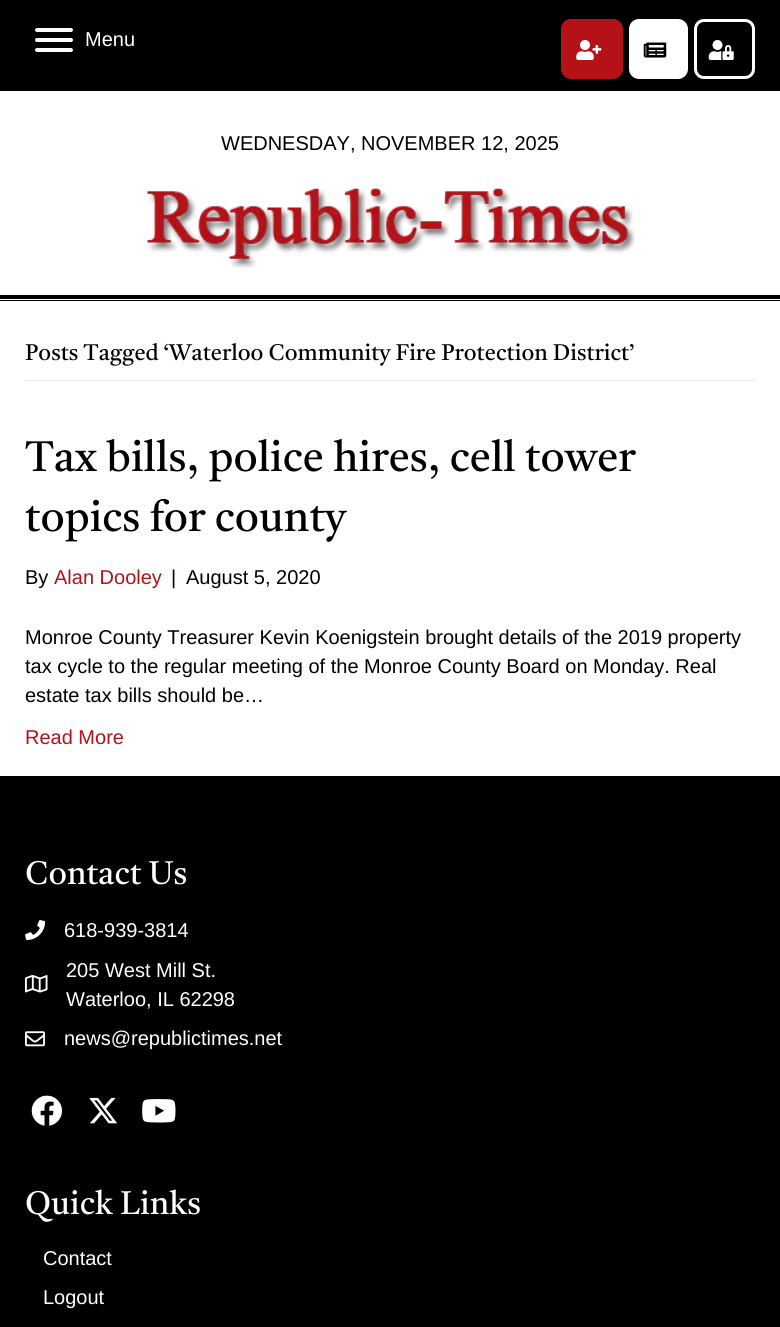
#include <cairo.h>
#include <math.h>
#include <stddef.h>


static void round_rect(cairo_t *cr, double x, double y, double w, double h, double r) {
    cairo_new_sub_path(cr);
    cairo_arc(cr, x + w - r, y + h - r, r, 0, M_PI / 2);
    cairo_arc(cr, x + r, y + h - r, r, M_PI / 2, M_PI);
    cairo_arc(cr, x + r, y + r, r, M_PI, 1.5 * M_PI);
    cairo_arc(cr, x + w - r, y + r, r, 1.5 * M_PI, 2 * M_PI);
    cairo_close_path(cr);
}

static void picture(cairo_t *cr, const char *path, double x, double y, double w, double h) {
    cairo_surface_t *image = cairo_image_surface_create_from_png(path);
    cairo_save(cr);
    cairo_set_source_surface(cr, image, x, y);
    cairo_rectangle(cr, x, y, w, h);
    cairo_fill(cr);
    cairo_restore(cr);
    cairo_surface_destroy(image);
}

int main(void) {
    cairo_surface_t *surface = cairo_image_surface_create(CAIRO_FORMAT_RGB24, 780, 1327);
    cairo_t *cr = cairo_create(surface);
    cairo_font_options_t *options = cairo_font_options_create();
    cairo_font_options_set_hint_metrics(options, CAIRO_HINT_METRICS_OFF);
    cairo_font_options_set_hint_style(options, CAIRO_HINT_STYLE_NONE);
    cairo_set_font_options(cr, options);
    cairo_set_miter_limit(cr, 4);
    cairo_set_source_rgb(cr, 1, 1, 1);
    cairo_paint(cr);
    cairo_set_source_rgb(cr, 0, 0, 0);
    cairo_rectangle(cr, 0, 0, 780, 91);
    cairo_fill(cr);
    cairo_set_source_rgb(cr, 1, 1, 1);
    round_rect(cr, 35, 38, 38, 4, 2);
    cairo_fill(cr);
    round_rect(cr, 35, 28, 38, 4, 2);
    cairo_fill(cr);
    round_rect(cr, 35, 48, 38, 4, 2);
    cairo_fill(cr);
    cairo_select_font_face(cr, "Liberation Sans", CAIRO_FONT_SLANT_NORMAL, CAIRO_FONT_WEIGHT_NORMAL);
    cairo_set_font_size(cr, 20);
    cairo_move_to(cr, 85, 46);
    cairo_show_text(cr, "Menu");
    cairo_set_source_rgb(cr, 0.71, 0.071, 0.094);
    round_rect(cr, 562.5, 20.5, 59, 57, 8.5);
    cairo_fill_preserve(cr);
    cairo_set_line_width(cr, 3);
    cairo_stroke(cr);
    picture(cr, "img1.png", 576, 40, 26, 20);
    cairo_set_source_rgb(cr, 1, 1, 1);
    round_rect(cr, 630.5, 20.5, 56, 57, 8.5);
    cairo_fill_preserve(cr);
    cairo_stroke(cr);
    picture(cr, "img2.png", 643, 42, 24, 16);
    round_rect(cr, 695.5, 20.5, 58, 57, 8.5);
    cairo_stroke(cr);
    picture(cr, "img3.png", 708, 40, 26, 20);
    cairo_set_source_rgb(cr, 0, 0, 0);
    cairo_move_to(cr, 221, 150);
    cairo_show_text(cr, "WEDNESDAY, NOVEMBER 12, 2025");
    picture(cr, "img4.png", 147, 188, 488, 80);
    cairo_rectangle(cr, 0, 295, 780, 4);
    cairo_fill(cr);
    cairo_rectangle(cr, 0, 300, 780, 1);
    cairo_fill(cr);
    cairo_set_source_rgb(cr, 0.902, 0.902, 0.902);
    cairo_rectangle(cr, 25, 380, 730, 1);
    cairo_fill(cr);
    cairo_select_font_face(cr, "Castoro", CAIRO_FONT_SLANT_NORMAL, CAIRO_FONT_WEIGHT_NORMAL);
    cairo_set_font_size(cr, 22.5);
    cairo_set_source_rgb(cr, 0, 0, 0);
    cairo_move_to(cr, 25, 360);
    cairo_show_text(cr, "Posts Tagged ‘Waterloo Community Fire Protection District’");
    cairo_set_font_size(cr, 42.5);
    cairo_move_to(cr, 25, 471);
    cairo_show_text(cr, "Tax bills, police hires, cell tower");
    cairo_move_to(cr, 25, 531);
    cairo_show_text(cr, "topics for county");
    cairo_select_font_face(cr, "Liberation Sans", CAIRO_FONT_SLANT_NORMAL, CAIRO_FONT_WEIGHT_NORMAL);
    cairo_set_font_size(cr, 20);
    cairo_move_to(cr, 25, 584);
    cairo_show_text(cr, "By");
    cairo_set_source_rgb(cr, 0.71, 0.071, 0.094);
    cairo_move_to(cr, 54, 584);
    cairo_show_text(cr, "Alan Dooley");
    cairo_set_source_rgb(cr, 0, 0, 0);
    cairo_move_to(cr, 171, 584);
    cairo_show_text(cr, "|");
    cairo_move_to(cr, 186, 584);
    cairo_show_text(cr, "August 5, 2020");
    cairo_move_to(cr, 25, 644);
    cairo_show_text(cr, "Monroe County Treasurer Kevin Koenigstein brought details of the 2019 property");
    cairo_move_to(cr, 25, 673);
    cairo_show_text(cr, "tax cycle to the regular meeting of the Monroe County Board on Monday. Real");
    cairo_move_to(cr, 25, 702);
    cairo_show_text(cr, "estate tax bills should be…");
    cairo_set_source_rgb(cr, 0.71, 0.071, 0.094);
    cairo_move_to(cr, 25, 744);
    cairo_show_text(cr, "Read More");
    cairo_set_source_rgb(cr, 0, 0, 0);
    cairo_rectangle(cr, 0, 776, 780, 551);
    cairo_fill(cr);
    cairo_select_font_face(cr, "Castoro", CAIRO_FONT_SLANT_NORMAL, CAIRO_FONT_WEIGHT_NORMAL);
    cairo_set_font_size(cr, 32.5);
    cairo_set_source_rgb(cr, 1, 1, 1);
    cairo_move_to(cr, 25, 884);
    cairo_show_text(cr, "Contact Us");
    picture(cr, "img5.png", 25, 920, 20, 20);
    cairo_select_font_face(cr, "Liberation Sans", CAIRO_FONT_SLANT_NORMAL, CAIRO_FONT_WEIGHT_NORMAL);
    cairo_set_font_size(cr, 20);
    cairo_move_to(cr, 64, 937);
    cairo_show_text(cr, "618-939-3814");
    picture(cr, "img6.png", 25, 975, 23, 18);
    cairo_move_to(cr, 66, 977);
    cairo_show_text(cr, "205 West Mill St.");
    cairo_move_to(cr, 66, 1006);
    cairo_show_text(cr, "Waterloo, IL 62298");
    picture(cr, "img7.png", 25, 1031, 20, 16);
    cairo_move_to(cr, 64, 1045);
    cairo_show_text(cr, "news@republictimes.net");
    picture(cr, "img8.png", 31, 1095, 31, 31);
    picture(cr, "img9.png", 89, 1097, 29, 27);
    picture(cr, "img10.png", 142, 1099, 34, 24);
    cairo_select_font_face(cr, "Castoro", CAIRO_FONT_SLANT_NORMAL, CAIRO_FONT_WEIGHT_NORMAL);
    cairo_set_font_size(cr, 32.5);
    cairo_move_to(cr, 25, 1214);
    cairo_show_text(cr, "Quick Links");
    cairo_select_font_face(cr, "Liberation Sans", CAIRO_FONT_SLANT_NORMAL, CAIRO_FONT_WEIGHT_NORMAL);
    cairo_set_font_size(cr, 20);
    cairo_move_to(cr, 43, 1265);
    cairo_show_text(cr, "Contact");
    cairo_move_to(cr, 43, 1304);
    cairo_show_text(cr, "Logout");
    cairo_surface_write_to_png(surface, "page.png");
    cairo_font_options_destroy(options);
    cairo_destroy(cr);
    cairo_surface_destroy(surface);
    return 0;
}
